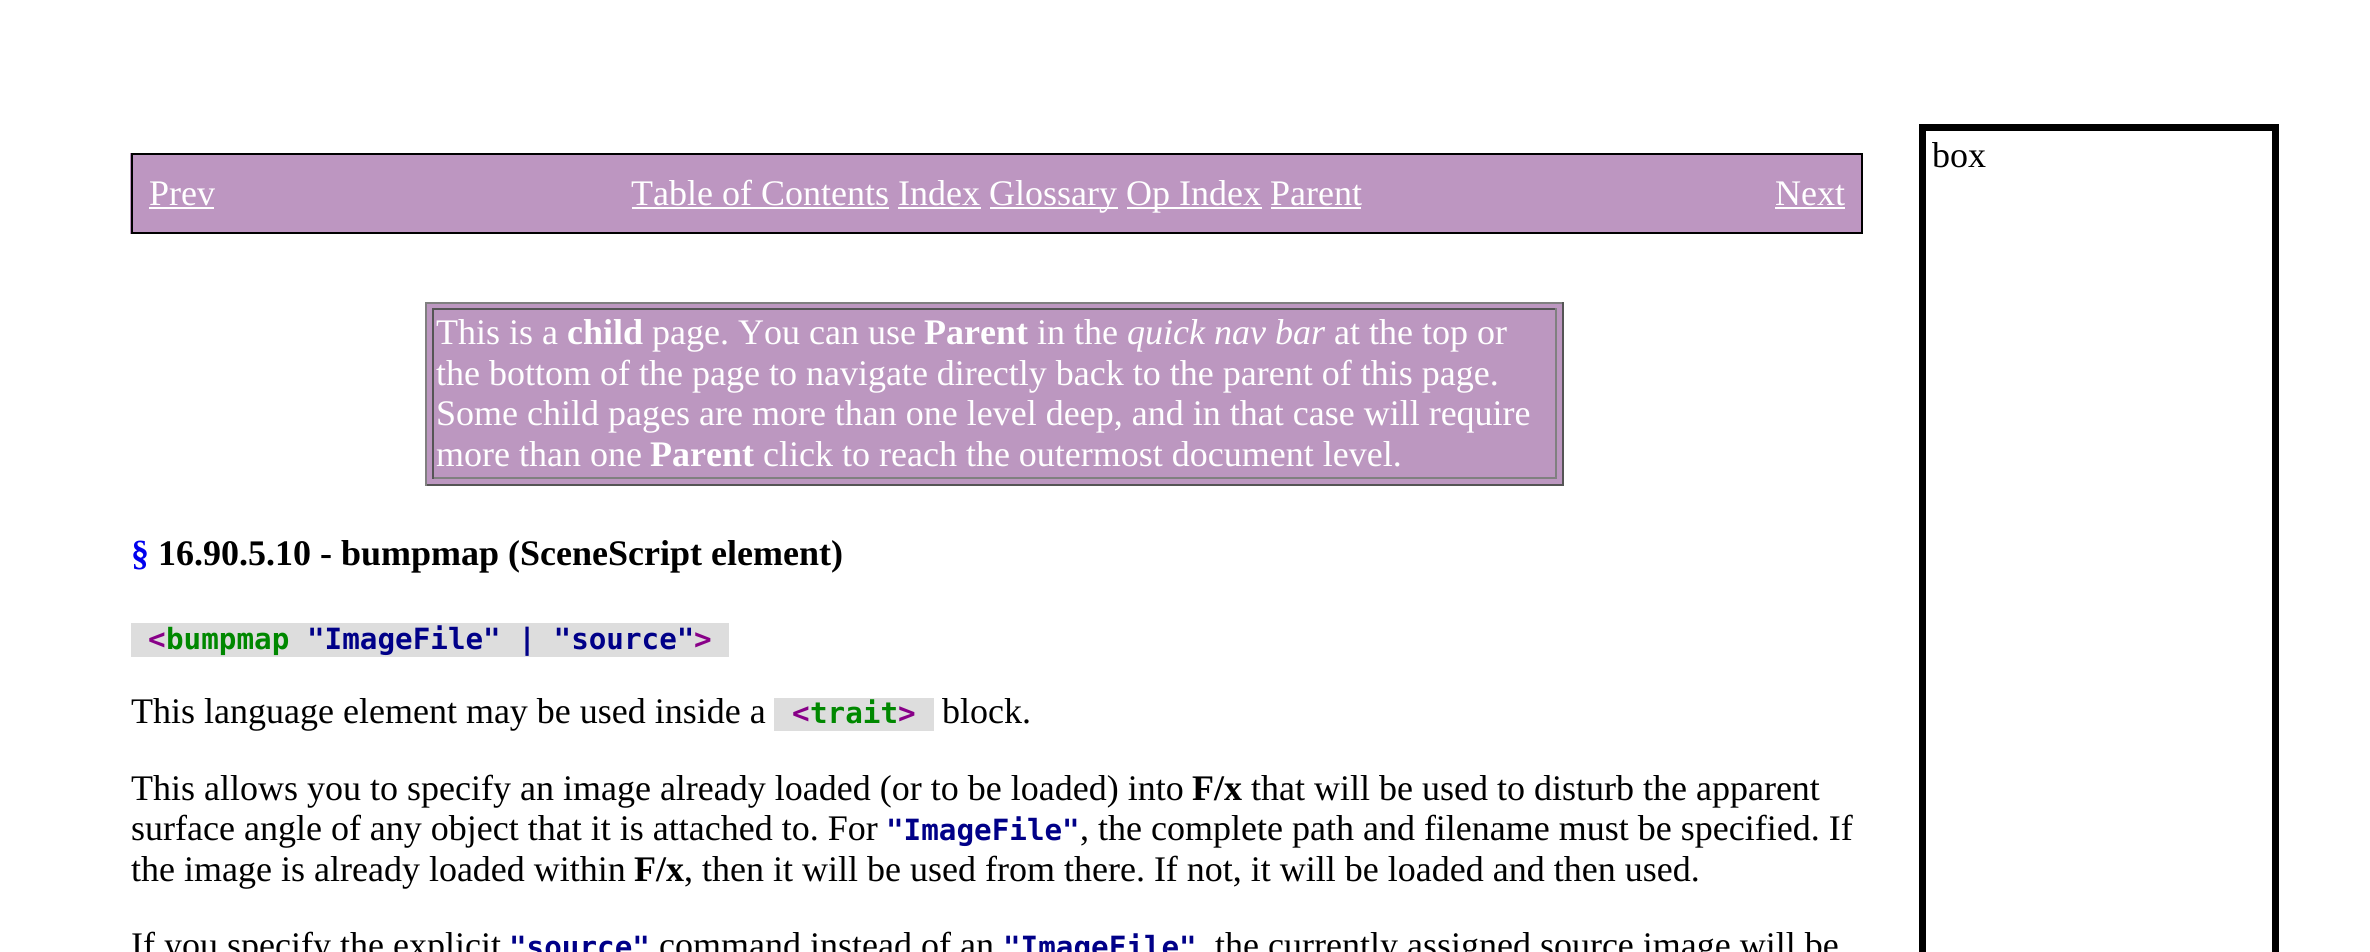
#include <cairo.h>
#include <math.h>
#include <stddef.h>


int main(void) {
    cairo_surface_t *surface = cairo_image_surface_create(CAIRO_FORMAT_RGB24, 2370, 952);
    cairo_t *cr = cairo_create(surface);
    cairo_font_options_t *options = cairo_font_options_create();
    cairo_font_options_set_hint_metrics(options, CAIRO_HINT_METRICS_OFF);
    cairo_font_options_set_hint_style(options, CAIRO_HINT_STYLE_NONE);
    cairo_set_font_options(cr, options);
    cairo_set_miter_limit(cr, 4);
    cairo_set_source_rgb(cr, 1, 1, 1);
    cairo_paint(cr);
    cairo_rectangle(cr, 1922.5, 127.5, 353, 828);
    cairo_set_source_rgb(cr, 0, 0, 0);
    cairo_set_line_width(cr, 7);
    cairo_stroke(cr);
    cairo_select_font_face(cr, "Liberation Serif", CAIRO_FONT_SLANT_NORMAL, CAIRO_FONT_WEIGHT_NORMAL);
    cairo_set_font_size(cr, 36);
    cairo_move_to(cr, 1932, 167);
    cairo_show_text(cr, "box");
    cairo_set_source_rgb(cr, 0.741, 0.588, 0.757);
    cairo_rectangle(cr, 130, 153, 1731, 81);
    cairo_fill(cr);
    cairo_rectangle(cr, 132, 154, 1730, 79);
    cairo_set_source_rgb(cr, 0, 0, 0);
    cairo_set_line_width(cr, 2);
    cairo_stroke(cr);
    cairo_set_source_rgb(cr, 1, 1, 1);
    cairo_move_to(cr, 149, 205);
    cairo_show_text(cr, "Prev");
    cairo_rectangle(cr, 149, 207, 65, 2);
    cairo_fill(cr);
    cairo_move_to(cr, 631, 205);
    cairo_show_text(cr, "Table of Contents Index");
    cairo_rectangle(cr, 632, 207, 257, 2);
    cairo_fill(cr);
    cairo_rectangle(cr, 990, 207, 128, 2);
    cairo_fill(cr);
    cairo_move_to(cr, 989, 205);
    cairo_show_text(cr, "Glossary");
    cairo_rectangle(cr, 1127, 207, 135, 2);
    cairo_fill(cr);
    cairo_move_to(cr, 1126, 205);
    cairo_show_text(cr, "Op Index Parent");
    cairo_rectangle(cr, 898, 207, 83, 2);
    cairo_fill(cr);
    cairo_rectangle(cr, 1271, 207, 90, 2);
    cairo_fill(cr);
    cairo_move_to(cr, 1775, 205);
    cairo_show_text(cr, "Next");
    cairo_rectangle(cr, 1775, 207, 70, 2);
    cairo_fill(cr);
    cairo_set_source_rgb(cr, 0.737, 0.592, 0.753);
    cairo_rectangle(cr, 427, 304, 1135, 180);
    cairo_fill(cr);
    cairo_set_source_rgb(cr, 0.502, 0.502, 0.502);
    cairo_rectangle(cr, 425, 302, 1139, 2);
    cairo_fill(cr);
    cairo_set_source_rgb(cr, 0.333, 0.333, 0.333);
    cairo_rectangle(cr, 1562, 302, 2, 184);
    cairo_fill(cr);
    cairo_rectangle(cr, 425, 484, 1139, 2);
    cairo_fill(cr);
    cairo_set_source_rgb(cr, 0.502, 0.502, 0.502);
    cairo_rectangle(cr, 425, 302, 2, 184);
    cairo_fill(cr);
    cairo_set_source_rgb(cr, 0.333, 0.333, 0.333);
    cairo_rectangle(cr, 432, 308, 1125, 2);
    cairo_fill(cr);
    cairo_set_source_rgb(cr, 0.502, 0.502, 0.502);
    cairo_rectangle(cr, 1555, 308, 2, 171);
    cairo_fill(cr);
    cairo_rectangle(cr, 432, 477, 1125, 2);
    cairo_fill(cr);
    cairo_set_source_rgb(cr, 0.333, 0.333, 0.333);
    cairo_rectangle(cr, 432, 308, 2, 171);
    cairo_fill(cr);
    cairo_set_source_rgb(cr, 1, 1, 1);
    cairo_move_to(cr, 436, 344);
    cairo_show_text(cr, "This is a");
    cairo_select_font_face(cr, "Liberation Serif", CAIRO_FONT_SLANT_NORMAL, CAIRO_FONT_WEIGHT_BOLD);
    cairo_move_to(cr, 567, 344);
    cairo_show_text(cr, "child");
    cairo_select_font_face(cr, "Liberation Serif", CAIRO_FONT_SLANT_NORMAL, CAIRO_FONT_WEIGHT_NORMAL);
    cairo_move_to(cr, 652, 344);
    cairo_show_text(cr, "page. You can use");
    cairo_select_font_face(cr, "Liberation Serif", CAIRO_FONT_SLANT_NORMAL, CAIRO_FONT_WEIGHT_BOLD);
    cairo_move_to(cr, 924, 344);
    cairo_show_text(cr, "Parent");
    cairo_select_font_face(cr, "Liberation Serif", CAIRO_FONT_SLANT_NORMAL, CAIRO_FONT_WEIGHT_NORMAL);
    cairo_move_to(cr, 1037, 344);
    cairo_show_text(cr, "in the");
    cairo_select_font_face(cr, "Liberation Serif", CAIRO_FONT_SLANT_ITALIC, CAIRO_FONT_WEIGHT_NORMAL);
    cairo_move_to(cr, 1127, 344);
    cairo_show_text(cr, "quick nav bar");
    cairo_select_font_face(cr, "Liberation Serif", CAIRO_FONT_SLANT_NORMAL, CAIRO_FONT_WEIGHT_NORMAL);
    cairo_move_to(cr, 1334, 344);
    cairo_show_text(cr, "at the top or");
    cairo_move_to(cr, 436, 385);
    cairo_show_text(cr, "the bottom of the page to navigate directly back to the parent of this page.");
    cairo_move_to(cr, 436, 425);
    cairo_show_text(cr, "Some child pages are more than one level deep, and in that case will require");
    cairo_move_to(cr, 436, 466);
    cairo_show_text(cr, "more than one");
    cairo_select_font_face(cr, "Liberation Serif", CAIRO_FONT_SLANT_NORMAL, CAIRO_FONT_WEIGHT_BOLD);
    cairo_move_to(cr, 650, 466);
    cairo_show_text(cr, "Parent");
    cairo_select_font_face(cr, "Liberation Serif", CAIRO_FONT_SLANT_NORMAL, CAIRO_FONT_WEIGHT_NORMAL);
    cairo_move_to(cr, 763, 466);
    cairo_show_text(cr, "click to reach the outermost document level.");
    cairo_select_font_face(cr, "Liberation Serif", CAIRO_FONT_SLANT_NORMAL, CAIRO_FONT_WEIGHT_BOLD);
    cairo_set_source_rgb(cr, 0, 0, 0.933);
    cairo_move_to(cr, 131, 565);
    cairo_show_text(cr, "§");
    cairo_set_source_rgb(cr, 0, 0, 0);
    cairo_move_to(cr, 158, 565);
    cairo_show_text(cr, "16.90.5.10 - bumpmap (SceneScript element)");
    cairo_set_source_rgb(cr, 0.867, 0.867, 0.867);
    cairo_rectangle(cr, 131, 623, 598, 34);
    cairo_fill(cr);
    cairo_select_font_face(cr, "DejaVu Sans Mono", CAIRO_FONT_SLANT_NORMAL, CAIRO_FONT_WEIGHT_BOLD);
    cairo_set_font_size(cr, 29.25);
    cairo_set_source_rgb(cr, 0.533, 0, 0.533);
    cairo_move_to(cr, 148, 649);
    cairo_show_text(cr, "<");
    cairo_set_source_rgb(cr, 0, 0.533, 0);
    cairo_move_to(cr, 166, 649);
    cairo_show_text(cr, "bumpmap");
    cairo_set_source_rgb(cr, 0, 0, 0.533);
    cairo_move_to(cr, 307, 649);
    cairo_show_text(cr, "\"ImageFile\" | \"source\"");
    cairo_set_source_rgb(cr, 0.533, 0, 0.533);
    cairo_move_to(cr, 694, 649);
    cairo_show_text(cr, ">");
    cairo_select_font_face(cr, "Liberation Serif", CAIRO_FONT_SLANT_NORMAL, CAIRO_FONT_WEIGHT_NORMAL);
    cairo_set_font_size(cr, 36);
    cairo_set_source_rgb(cr, 0, 0, 0);
    cairo_move_to(cr, 131, 723);
    cairo_show_text(cr, "This language element may be used inside a");
    cairo_set_source_rgb(cr, 0.867, 0.867, 0.867);
    cairo_rectangle(cr, 774, 698, 160, 33);
    cairo_fill(cr);
    cairo_select_font_face(cr, "DejaVu Sans Mono", CAIRO_FONT_SLANT_NORMAL, CAIRO_FONT_WEIGHT_BOLD);
    cairo_set_font_size(cr, 29.25);
    cairo_set_source_rgb(cr, 0.533, 0, 0.533);
    cairo_move_to(cr, 792, 723);
    cairo_show_text(cr, "<");
    cairo_set_source_rgb(cr, 0, 0.533, 0);
    cairo_move_to(cr, 810, 723);
    cairo_show_text(cr, "trait");
    cairo_set_source_rgb(cr, 0.533, 0, 0.533);
    cairo_move_to(cr, 898, 723);
    cairo_show_text(cr, ">");
    cairo_select_font_face(cr, "Liberation Serif", CAIRO_FONT_SLANT_NORMAL, CAIRO_FONT_WEIGHT_NORMAL);
    cairo_set_font_size(cr, 36);
    cairo_set_source_rgb(cr, 0, 0, 0);
    cairo_move_to(cr, 942, 723);
    cairo_show_text(cr, "block.");
    cairo_move_to(cr, 131, 800);
    cairo_show_text(cr, "This allows you to specify an image already loaded (or to be loaded) into");
    cairo_select_font_face(cr, "Liberation Serif", CAIRO_FONT_SLANT_NORMAL, CAIRO_FONT_WEIGHT_BOLD);
    cairo_move_to(cr, 1192, 800);
    cairo_show_text(cr, "F/x");
    cairo_select_font_face(cr, "Liberation Serif", CAIRO_FONT_SLANT_NORMAL, CAIRO_FONT_WEIGHT_NORMAL);
    cairo_move_to(cr, 1251, 800);
    cairo_show_text(cr, "that will be used to disturb the apparent");
    cairo_move_to(cr, 131, 840);
    cairo_show_text(cr, "surface angle of any object that it is attached to. For");
    cairo_select_font_face(cr, "DejaVu Sans Mono", CAIRO_FONT_SLANT_NORMAL, CAIRO_FONT_WEIGHT_BOLD);
    cairo_set_font_size(cr, 29.25);
    cairo_set_source_rgb(cr, 0, 0, 0.533);
    cairo_move_to(cr, 886, 840);
    cairo_show_text(cr, "\"ImageFile\"");
    cairo_select_font_face(cr, "Liberation Serif", CAIRO_FONT_SLANT_NORMAL, CAIRO_FONT_WEIGHT_NORMAL);
    cairo_set_font_size(cr, 36);
    cairo_set_source_rgb(cr, 0, 0, 0);
    cairo_move_to(cr, 1080, 840);
    cairo_show_text(cr, ", the complete path and filename must be specified. If");
    cairo_move_to(cr, 131, 881);
    cairo_show_text(cr, "the image is already loaded within");
    cairo_select_font_face(cr, "Liberation Serif", CAIRO_FONT_SLANT_NORMAL, CAIRO_FONT_WEIGHT_BOLD);
    cairo_move_to(cr, 634, 881);
    cairo_show_text(cr, "F/x");
    cairo_select_font_face(cr, "Liberation Serif", CAIRO_FONT_SLANT_NORMAL, CAIRO_FONT_WEIGHT_NORMAL);
    cairo_move_to(cr, 684, 881);
    cairo_show_text(cr, ", then it will be used from there. If not, it will be loaded and then used.");
    cairo_move_to(cr, 131, 957);
    cairo_show_text(cr, "If you specify the explicit");
    cairo_select_font_face(cr, "DejaVu Sans Mono", CAIRO_FONT_SLANT_NORMAL, CAIRO_FONT_WEIGHT_BOLD);
    cairo_set_font_size(cr, 29.25);
    cairo_set_source_rgb(cr, 0, 0, 0.533);
    cairo_move_to(cr, 509, 957);
    cairo_show_text(cr, "\"source\"");
    cairo_select_font_face(cr, "Liberation Serif", CAIRO_FONT_SLANT_NORMAL, CAIRO_FONT_WEIGHT_NORMAL);
    cairo_set_font_size(cr, 36);
    cairo_set_source_rgb(cr, 0, 0, 0);
    cairo_move_to(cr, 659, 957);
    cairo_show_text(cr, "command instead of an");
    cairo_select_font_face(cr, "DejaVu Sans Mono", CAIRO_FONT_SLANT_NORMAL, CAIRO_FONT_WEIGHT_BOLD);
    cairo_set_font_size(cr, 29.25);
    cairo_set_source_rgb(cr, 0, 0, 0.533);
    cairo_move_to(cr, 1003, 957);
    cairo_show_text(cr, "\"ImageFile\"");
    cairo_select_font_face(cr, "Liberation Serif", CAIRO_FONT_SLANT_NORMAL, CAIRO_FONT_WEIGHT_NORMAL);
    cairo_set_font_size(cr, 36);
    cairo_set_source_rgb(cr, 0, 0, 0);
    cairo_move_to(cr, 1215, 957);
    cairo_show_text(cr, "the currently assigned source image will be");
    cairo_surface_write_to_png(surface, "page.png");
    cairo_font_options_destroy(options);
    cairo_destroy(cr);
    cairo_surface_destroy(surface);
    return 0;
}
